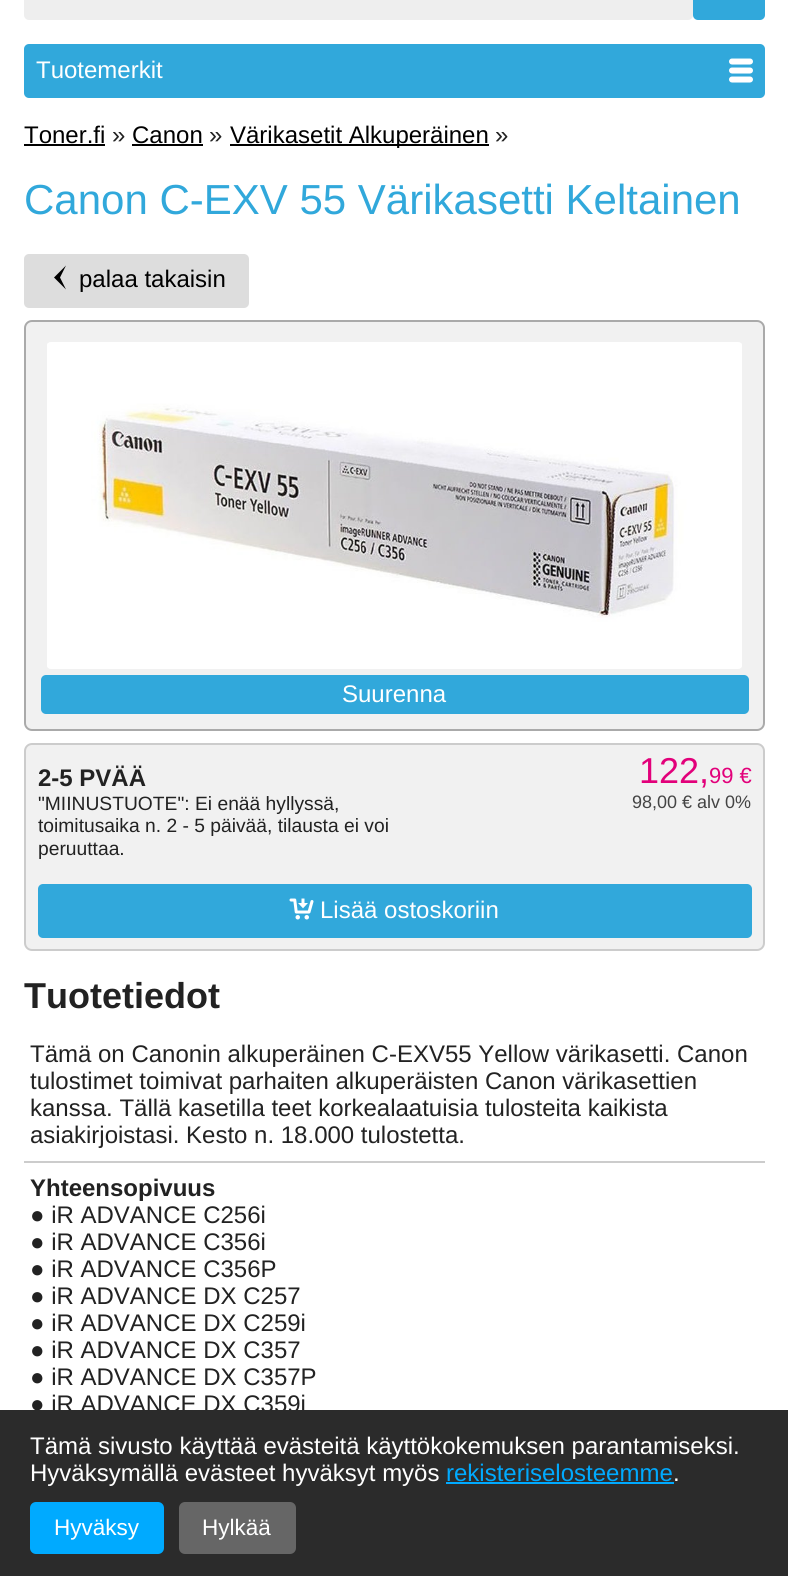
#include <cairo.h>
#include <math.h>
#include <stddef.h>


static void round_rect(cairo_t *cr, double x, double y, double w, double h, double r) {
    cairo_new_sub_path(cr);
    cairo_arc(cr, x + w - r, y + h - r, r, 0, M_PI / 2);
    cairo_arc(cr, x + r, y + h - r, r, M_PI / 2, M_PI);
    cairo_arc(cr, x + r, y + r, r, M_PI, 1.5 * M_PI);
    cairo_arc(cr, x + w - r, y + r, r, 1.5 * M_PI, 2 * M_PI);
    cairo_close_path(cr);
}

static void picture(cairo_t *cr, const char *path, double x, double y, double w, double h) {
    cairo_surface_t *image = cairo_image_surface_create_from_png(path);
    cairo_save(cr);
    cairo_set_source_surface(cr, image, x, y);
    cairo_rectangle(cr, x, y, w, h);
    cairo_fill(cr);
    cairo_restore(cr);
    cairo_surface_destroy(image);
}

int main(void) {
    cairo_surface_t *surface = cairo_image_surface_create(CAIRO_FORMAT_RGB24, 788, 1576);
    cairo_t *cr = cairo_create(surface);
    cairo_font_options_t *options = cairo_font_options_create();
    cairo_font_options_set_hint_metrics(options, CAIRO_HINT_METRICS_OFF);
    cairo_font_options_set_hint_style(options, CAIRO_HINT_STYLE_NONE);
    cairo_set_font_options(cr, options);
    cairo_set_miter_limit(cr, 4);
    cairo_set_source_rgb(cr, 1, 1, 1);
    cairo_paint(cr);
    cairo_set_source_rgb(cr, 0.933, 0.933, 0.933);
    round_rect(cr, 24, -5, 669, 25, 5);
    cairo_fill(cr);
    cairo_set_source_rgb(cr, 0.192, 0.659, 0.859);
    round_rect(cr, 693, -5, 72, 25, 5);
    cairo_fill(cr);
    round_rect(cr, 24, 44, 741, 54, 5);
    cairo_fill(cr);
    cairo_select_font_face(cr, "Liberation Sans", CAIRO_FONT_SLANT_NORMAL, CAIRO_FONT_WEIGHT_NORMAL);
    cairo_set_font_size(cr, 24);
    cairo_set_source_rgb(cr, 1, 1, 1);
    cairo_move_to(cr, 36, 78);
    cairo_show_text(cr, "Tuotemerkit");
    picture(cr, "img1.png", 729, 58, 24, 25);
    cairo_set_source_rgb(cr, 0, 0, 0);
    cairo_move_to(cr, 24, 143);
    cairo_show_text(cr, "Toner.fi");
    cairo_rectangle(cr, 24, 144, 81, 2);
    cairo_fill(cr);
    cairo_set_source_rgb(cr, 0.133, 0.133, 0.133);
    cairo_move_to(cr, 112, 143);
    cairo_show_text(cr, "»");
    cairo_set_source_rgb(cr, 0, 0, 0);
    cairo_move_to(cr, 132, 143);
    cairo_show_text(cr, "Canon");
    cairo_rectangle(cr, 132, 144, 71, 2);
    cairo_fill(cr);
    cairo_set_source_rgb(cr, 0.133, 0.133, 0.133);
    cairo_move_to(cr, 209, 143);
    cairo_show_text(cr, "»");
    cairo_set_source_rgb(cr, 0, 0, 0);
    cairo_rectangle(cr, 230, 144, 259, 2);
    cairo_fill(cr);
    cairo_move_to(cr, 230, 143);
    cairo_show_text(cr, "Värikasetit Alkuperäinen");
    cairo_set_source_rgb(cr, 0.133, 0.133, 0.133);
    cairo_move_to(cr, 495, 143);
    cairo_show_text(cr, "»");
    cairo_set_font_size(cr, 42);
    cairo_set_source_rgb(cr, 0.192, 0.659, 0.859);
    cairo_move_to(cr, 24, 214);
    cairo_show_text(cr, "Canon C-EXV 55 Värikasetti Keltainen");
    cairo_set_source_rgb(cr, 0.867, 0.867, 0.867);
    round_rect(cr, 24, 254, 225, 54, 5);
    cairo_fill(cr);
    cairo_set_source_rgb(cr, 0, 0, 0);
    cairo_new_path(cr);
    cairo_move_to(cr, 66, 265.5);
    cairo_line_to(cr, 54, 277.5);
    cairo_line_to(cr, 66, 289.5);
    cairo_line_to(cr, 60, 277.5);
    cairo_close_path(cr);
    cairo_fill(cr);
    cairo_set_font_size(cr, 24);
    cairo_move_to(cr, 79, 287);
    cairo_show_text(cr, "palaa takaisin");
    cairo_set_source_rgb(cr, 0.945, 0.945, 0.945);
    round_rect(cr, 25, 321, 739, 409, 7);
    cairo_fill_preserve(cr);
    cairo_set_source_rgb(cr, 0.667, 0.667, 0.667);
    cairo_stroke(cr);
    picture(cr, "img2.png", 47, 342, 695, 327);
    cairo_set_source_rgb(cr, 0.192, 0.659, 0.859);
    round_rect(cr, 41, 675, 708, 39, 5);
    cairo_fill(cr);
    cairo_set_source_rgb(cr, 1, 1, 1);
    cairo_move_to(cr, 342, 702);
    cairo_show_text(cr, "Suurenna");
    cairo_set_source_rgb(cr, 0.945, 0.945, 0.945);
    round_rect(cr, 25, 744, 739, 206, 7);
    cairo_fill_preserve(cr);
    cairo_set_source_rgb(cr, 0.8, 0.8, 0.8);
    cairo_stroke(cr);
    cairo_select_font_face(cr, "Liberation Sans", CAIRO_FONT_SLANT_NORMAL, CAIRO_FONT_WEIGHT_BOLD);
    cairo_set_source_rgb(cr, 0.133, 0.133, 0.133);
    cairo_move_to(cr, 38, 786);
    cairo_show_text(cr, "2-5 PVÄÄ");
    cairo_select_font_face(cr, "Liberation Sans", CAIRO_FONT_SLANT_NORMAL, CAIRO_FONT_WEIGHT_NORMAL);
    cairo_set_font_size(cr, 19.25);
    cairo_move_to(cr, 38, 810);
    cairo_show_text(cr, "\"MIINUSTUOTE\": Ei enää hyllyssä,");
    cairo_move_to(cr, 38, 832);
    cairo_show_text(cr, "toimitusaika n. 2 - 5 päivää, tilausta ei voi");
    cairo_move_to(cr, 38, 855);
    cairo_show_text(cr, "peruuttaa.");
    cairo_set_font_size(cr, 36);
    cairo_set_source_rgb(cr, 0.886, 0, 0.478);
    cairo_move_to(cr, 639, 783);
    cairo_show_text(cr, "122,");
    cairo_set_font_size(cr, 22);
    cairo_move_to(cr, 709, 783);
    cairo_show_text(cr, "99 €");
    cairo_set_font_size(cr, 18);
    cairo_set_source_rgb(cr, 0.267, 0.267, 0.267);
    cairo_move_to(cr, 632, 808);
    cairo_show_text(cr, "98,00 € alv 0%");
    cairo_set_source_rgb(cr, 0.192, 0.659, 0.859);
    round_rect(cr, 38, 884, 714, 54, 5);
    cairo_fill(cr);
    picture(cr, "img3.png", 289, 898, 25, 22);
    cairo_set_font_size(cr, 24);
    cairo_set_source_rgb(cr, 1, 1, 1);
    cairo_move_to(cr, 320, 918);
    cairo_show_text(cr, "Lisää ostoskoriin");
    cairo_select_font_face(cr, "Liberation Sans", CAIRO_FONT_SLANT_NORMAL, CAIRO_FONT_WEIGHT_BOLD);
    cairo_set_font_size(cr, 36);
    cairo_set_source_rgb(cr, 0.133, 0.133, 0.133);
    cairo_move_to(cr, 24, 1008);
    cairo_show_text(cr, "Tuotetiedot");
    cairo_set_source_rgb(cr, 0.8, 0.8, 0.8);
    cairo_rectangle(cr, 24, 1161, 741, 2);
    cairo_fill(cr);
    cairo_select_font_face(cr, "Liberation Sans", CAIRO_FONT_SLANT_NORMAL, CAIRO_FONT_WEIGHT_NORMAL);
    cairo_set_font_size(cr, 24);
    cairo_set_source_rgb(cr, 0.133, 0.133, 0.133);
    cairo_move_to(cr, 30, 1062);
    cairo_show_text(cr, "Tämä on Canonin alkuperäinen C-EXV55 Yellow värikasetti. Canon");
    cairo_move_to(cr, 30, 1089);
    cairo_show_text(cr, "tulostimet toimivat parhaiten alkuperäisten Canon värikasettien");
    cairo_move_to(cr, 30, 1116);
    cairo_show_text(cr, "kanssa. Tällä kasetilla teet korkealaatuisia tulosteita kaikista");
    cairo_move_to(cr, 30, 1143);
    cairo_show_text(cr, "asiakirjoistasi. Kesto n. 18.000 tulostetta.");
    cairo_select_font_face(cr, "Liberation Sans", CAIRO_FONT_SLANT_NORMAL, CAIRO_FONT_WEIGHT_BOLD);
    cairo_move_to(cr, 30, 1196);
    cairo_show_text(cr, "Yhteensopivuus");
    cairo_select_font_face(cr, "Liberation Sans", CAIRO_FONT_SLANT_NORMAL, CAIRO_FONT_WEIGHT_NORMAL);
    cairo_move_to(cr, 30, 1223);
    cairo_show_text(cr, "● iR ADVANCE C256i");
    cairo_move_to(cr, 30, 1250);
    cairo_show_text(cr, "● iR ADVANCE C356i");
    cairo_move_to(cr, 30, 1277);
    cairo_show_text(cr, "● iR ADVANCE C356P");
    cairo_move_to(cr, 30, 1304);
    cairo_show_text(cr, "● iR ADVANCE DX C257");
    cairo_move_to(cr, 30, 1331);
    cairo_show_text(cr, "● iR ADVANCE DX C259i");
    cairo_move_to(cr, 30, 1358);
    cairo_show_text(cr, "● iR ADVANCE DX C357");
    cairo_move_to(cr, 30, 1385);
    cairo_show_text(cr, "● iR ADVANCE DX C357P");
    cairo_move_to(cr, 30, 1412);
    cairo_show_text(cr, "● iR ADVANCE DX C359i");
    cairo_set_source_rgb(cr, 0.169, 0.169, 0.169);
    cairo_rectangle(cr, 0, 1410, 788, 166);
    cairo_fill(cr);
    cairo_set_source_rgb(cr, 1, 1, 1);
    cairo_move_to(cr, 30, 1454);
    cairo_show_text(cr, "Tämä sivusto käyttää evästeitä käyttökokemuksen parantamiseksi.");
    cairo_move_to(cr, 30, 1481);
    cairo_show_text(cr, "Hyväksymällä evästeet hyväksyt myös");
    cairo_set_source_rgb(cr, 0, 0.667, 1);
    cairo_move_to(cr, 446, 1481);
    cairo_show_text(cr, "rekisteriselosteemme");
    cairo_rectangle(cr, 446, 1482, 228, 2);
    cairo_fill(cr);
    cairo_set_source_rgb(cr, 1, 1, 1);
    cairo_move_to(cr, 673, 1481);
    cairo_show_text(cr, ".");
    cairo_set_source_rgb(cr, 0, 0.667, 1);
    round_rect(cr, 30, 1502, 134, 52, 6);
    cairo_fill(cr);
    cairo_set_font_size(cr, 22.5);
    cairo_set_source_rgb(cr, 1, 1, 1);
    cairo_move_to(cr, 54, 1535);
    cairo_show_text(cr, "Hyväksy");
    cairo_set_source_rgb(cr, 0.4, 0.4, 0.4);
    round_rect(cr, 179, 1502, 117, 52, 6);
    cairo_fill(cr);
    cairo_set_source_rgb(cr, 1, 1, 1);
    cairo_move_to(cr, 202, 1535);
    cairo_show_text(cr, "Hylkää");
    cairo_surface_write_to_png(surface, "page.png");
    cairo_font_options_destroy(options);
    cairo_destroy(cr);
    cairo_surface_destroy(surface);
    return 0;
}
